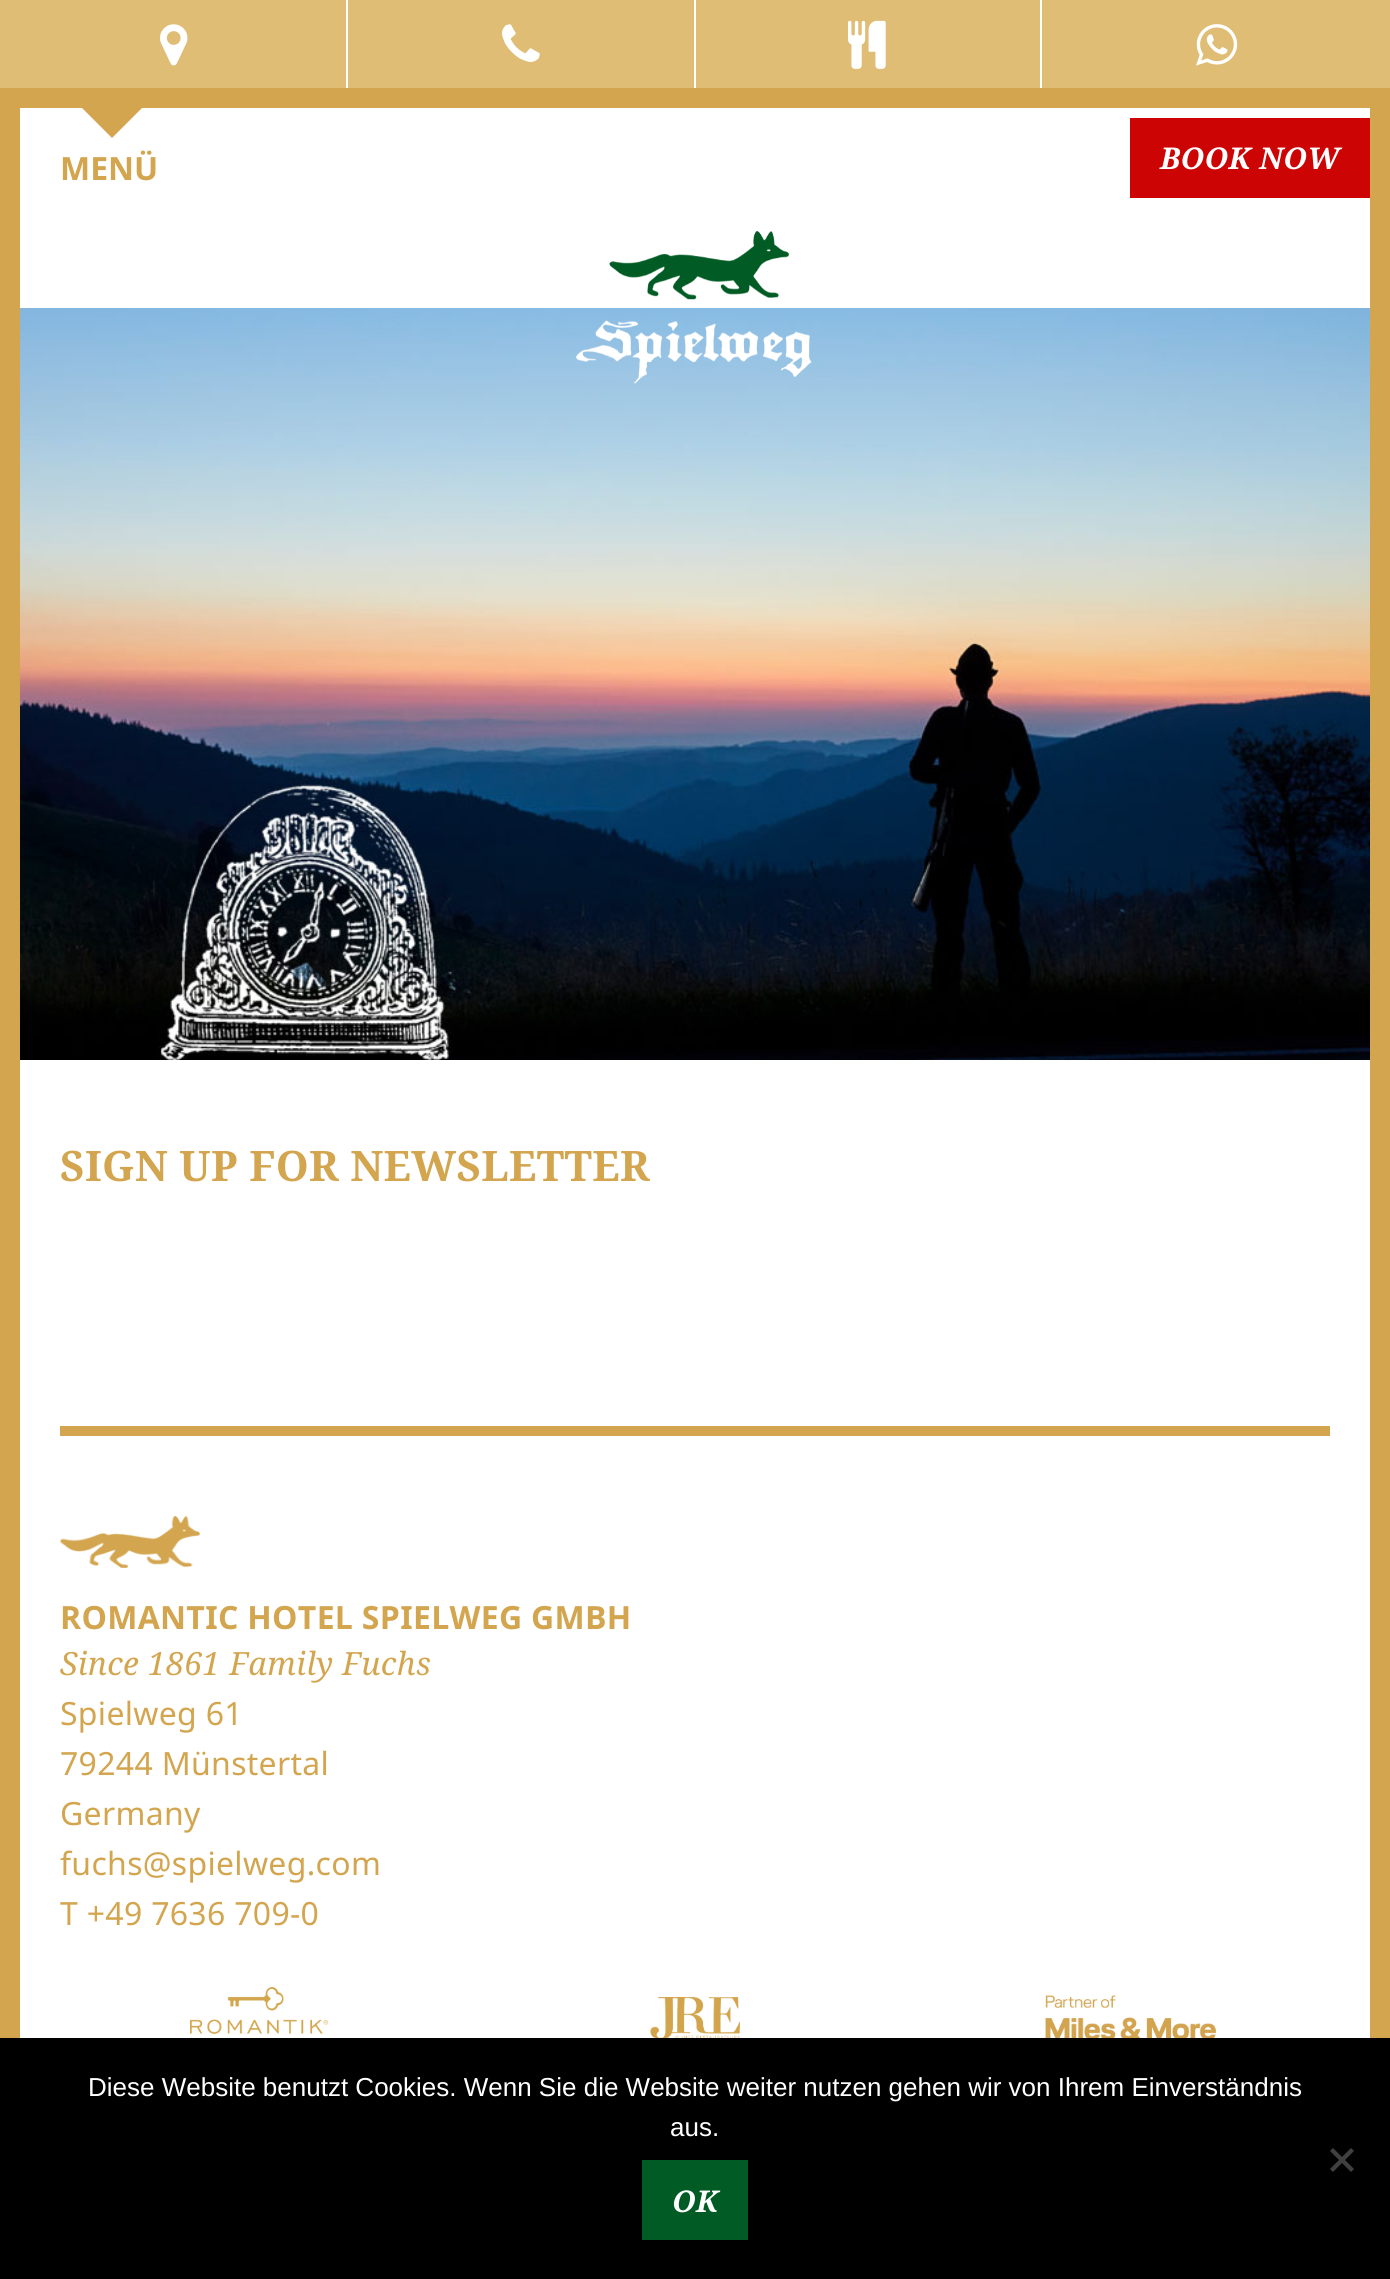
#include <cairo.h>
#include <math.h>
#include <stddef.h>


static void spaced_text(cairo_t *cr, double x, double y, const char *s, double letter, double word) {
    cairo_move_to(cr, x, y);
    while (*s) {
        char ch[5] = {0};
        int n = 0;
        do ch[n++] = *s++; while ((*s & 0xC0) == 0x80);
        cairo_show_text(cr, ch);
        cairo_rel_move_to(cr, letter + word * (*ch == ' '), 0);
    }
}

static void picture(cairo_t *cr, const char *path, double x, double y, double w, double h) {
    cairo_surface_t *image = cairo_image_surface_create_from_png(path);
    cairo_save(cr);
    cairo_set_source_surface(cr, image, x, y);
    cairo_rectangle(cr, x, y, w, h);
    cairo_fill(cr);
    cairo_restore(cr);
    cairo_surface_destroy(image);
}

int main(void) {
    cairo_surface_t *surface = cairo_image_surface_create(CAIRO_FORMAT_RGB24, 1390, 2279);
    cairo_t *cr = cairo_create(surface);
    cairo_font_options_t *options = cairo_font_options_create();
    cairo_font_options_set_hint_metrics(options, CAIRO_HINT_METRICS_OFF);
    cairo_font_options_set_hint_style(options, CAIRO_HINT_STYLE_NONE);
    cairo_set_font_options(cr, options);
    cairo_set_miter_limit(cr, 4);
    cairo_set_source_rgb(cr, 0.827, 0.647, 0.31);
    cairo_paint(cr);
    cairo_set_source_rgb(cr, 1, 1, 1);
    cairo_rectangle(cr, 20, 1060, 1350, 978);
    cairo_fill(cr);
    cairo_set_source_rgb(cr, 0.875, 0.741, 0.459);
    cairo_rectangle(cr, 0, 0, 1390, 88);
    cairo_fill(cr);
    cairo_set_source_rgb(cr, 1, 1, 1);
    cairo_rectangle(cr, 346, 0, 2, 88);
    cairo_fill(cr);
    picture(cr, "img1.png", 160, 24, 28, 42);
    cairo_rectangle(cr, 694, 0, 2, 88);
    cairo_fill(cr);
    picture(cr, "img2.png", 502, 24, 38, 38);
    cairo_rectangle(cr, 1040, 0, 2, 88);
    cairo_fill(cr);
    picture(cr, "img3.png", 848, 20, 38, 49);
    picture(cr, "img4.png", 1196, 24, 42, 42);
    cairo_rectangle(cr, 20, 108, 1350, 200);
    cairo_fill(cr);
    cairo_set_source_rgb(cr, 0.827, 0.647, 0.31);
    cairo_new_path(cr);
    cairo_move_to(cr, 82, 108);
    cairo_line_to(cr, 142, 108);
    cairo_line_to(cr, 112, 138);
    cairo_close_path(cr);
    cairo_fill(cr);
    cairo_select_font_face(cr, "Noto Sans", CAIRO_FONT_SLANT_NORMAL, CAIRO_FONT_WEIGHT_BOLD);
    cairo_set_font_size(cr, 32);
    cairo_move_to(cr, 60, 180);
    cairo_show_text(cr, "MENÜ");
    cairo_set_source_rgb(cr, 0.8, 0.016, 0.016);
    cairo_rectangle(cr, 1130, 118, 240, 80);
    cairo_fill(cr);
    cairo_select_font_face(cr, "Noto Serif", CAIRO_FONT_SLANT_ITALIC, CAIRO_FONT_WEIGHT_BOLD);
    cairo_set_font_size(cr, 30);
    cairo_set_source_rgb(cr, 1, 1, 1);
    spaced_text(cr, 1160, 169, "BOOK NOW", 0.3, 0);
    picture(cr, "img6.png", 20, 308, 1350, 752);
    picture(cr, "img5.png", 576, 231, 236, 153);
    cairo_select_font_face(cr, "Noto Serif", CAIRO_FONT_SLANT_NORMAL, CAIRO_FONT_WEIGHT_BOLD);
    cairo_set_font_size(cr, 42);
    cairo_set_source_rgb(cr, 0.827, 0.647, 0.31);
    spaced_text(cr, 60, 1181, "SIGN UP FOR NEWSLETTER", 0.3, 0);
    cairo_rectangle(cr, 60, 1426, 1270, 10);
    cairo_fill(cr);
    picture(cr, "img7.png", 60, 1516, 140, 52);
    cairo_select_font_face(cr, "Noto Sans", CAIRO_FONT_SLANT_NORMAL, CAIRO_FONT_WEIGHT_BOLD);
    cairo_set_font_size(cr, 32);
    spaced_text(cr, 60, 1629, "ROMANTIC HOTEL SPIELWEG GMBH", 0.3, 0);
    cairo_select_font_face(cr, "Noto Serif", CAIRO_FONT_SLANT_ITALIC, CAIRO_FONT_WEIGHT_NORMAL);
    spaced_text(cr, 60, 1675, "Since 1861 Family Fuchs", 0.3, 0);
    cairo_select_font_face(cr, "Noto Sans", CAIRO_FONT_SLANT_NORMAL, CAIRO_FONT_WEIGHT_NORMAL);
    spaced_text(cr, 60, 1725, "Spielweg 61", 0.3, 0);
    spaced_text(cr, 60, 1775, "79244 Münstertal", 0.3, 0);
    spaced_text(cr, 60, 1825, "Germany", 0.3, 0);
    spaced_text(cr, 60, 1875, "fuchs@spielweg.com", 0.3, 0);
    spaced_text(cr, 60, 1925, "T +49 7636 709-0", 0.3, 0);
    picture(cr, "img8.png", 190, 1987, 139, 48);
    picture(cr, "img9.png", 650, 1997, 90, 41);
    picture(cr, "img10.png", 1045, 1995, 171, 43);
    cairo_set_source_rgb(cr, 0, 0, 0);
    cairo_rectangle(cr, 0, 2038, 1390, 241);
    cairo_fill(cr);
    cairo_select_font_face(cr, "Liberation Sans", CAIRO_FONT_SLANT_NORMAL, CAIRO_FONT_WEIGHT_NORMAL);
    cairo_set_font_size(cr, 26);
    cairo_set_source_rgb(cr, 1, 1, 1);
    cairo_move_to(cr, 88, 2096);
    cairo_show_text(cr, "Diese Website benutzt Cookies. Wenn Sie die Website weiter nutzen gehen wir von Ihrem Einverständnis");
    cairo_move_to(cr, 670, 2136);
    cairo_show_text(cr, "aus.");
    cairo_set_source_rgb(cr, 0.251, 0.251, 0.251);
    cairo_new_path(cr);
    cairo_move_to(cr, 1351, 2148);
    cairo_line_to(cr, 1354, 2151);
    cairo_line_to(cr, 1333, 2172);
    cairo_line_to(cr, 1330, 2169);
    cairo_close_path(cr);
    cairo_fill(cr);
    cairo_new_path(cr);
    cairo_move_to(cr, 1330, 2151);
    cairo_line_to(cr, 1333, 2148);
    cairo_line_to(cr, 1354, 2169);
    cairo_line_to(cr, 1351, 2172);
    cairo_close_path(cr);
    cairo_fill(cr);
    cairo_set_source_rgb(cr, 0, 0.361, 0.141);
    cairo_rectangle(cr, 642, 2160, 106, 80);
    cairo_fill(cr);
    cairo_select_font_face(cr, "Noto Serif", CAIRO_FONT_SLANT_ITALIC, CAIRO_FONT_WEIGHT_BOLD);
    cairo_set_font_size(cr, 30);
    cairo_set_source_rgb(cr, 1, 1, 1);
    spaced_text(cr, 672, 2212, "OK", 0.3, 0);
    cairo_surface_write_to_png(surface, "page.png");
    cairo_font_options_destroy(options);
    cairo_destroy(cr);
    cairo_surface_destroy(surface);
    return 0;
}
